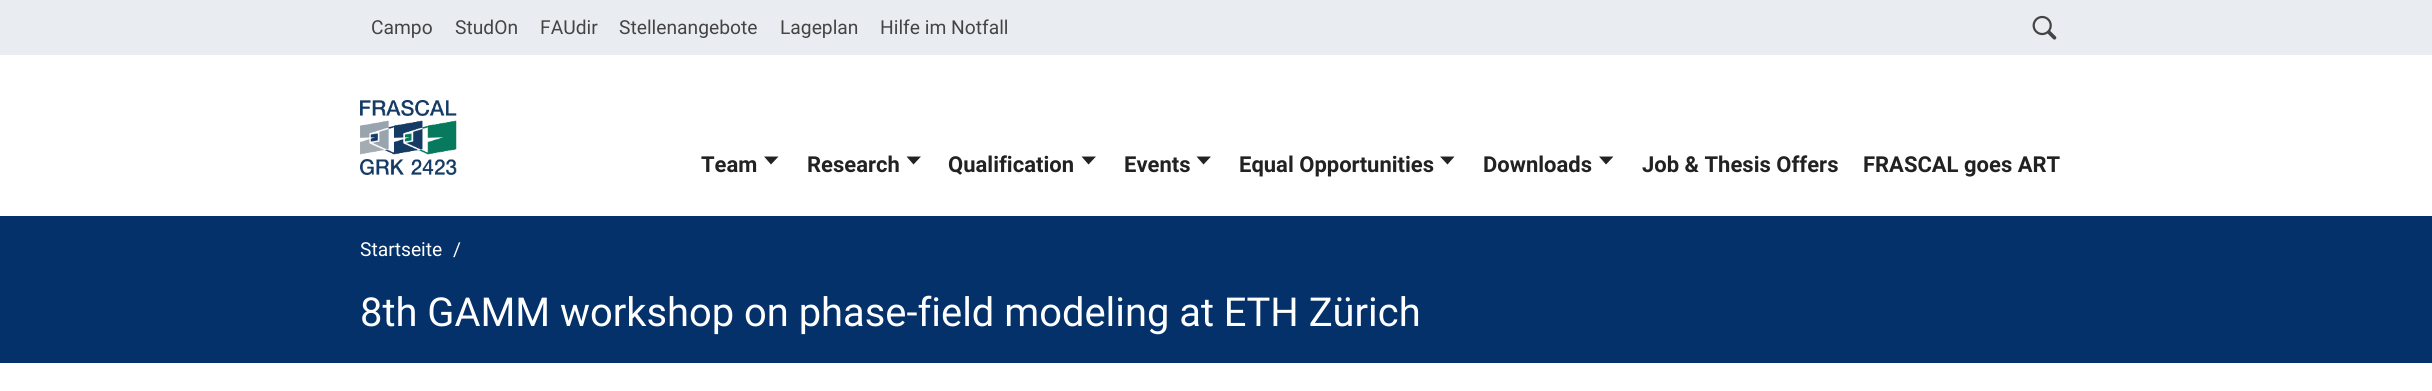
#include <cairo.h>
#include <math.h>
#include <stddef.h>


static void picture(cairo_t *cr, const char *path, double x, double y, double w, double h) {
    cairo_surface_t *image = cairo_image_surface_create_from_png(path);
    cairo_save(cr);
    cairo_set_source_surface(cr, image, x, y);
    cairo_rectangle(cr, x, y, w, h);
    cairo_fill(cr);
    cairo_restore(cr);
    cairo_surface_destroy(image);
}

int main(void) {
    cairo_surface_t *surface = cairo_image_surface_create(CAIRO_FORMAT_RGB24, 2432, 391);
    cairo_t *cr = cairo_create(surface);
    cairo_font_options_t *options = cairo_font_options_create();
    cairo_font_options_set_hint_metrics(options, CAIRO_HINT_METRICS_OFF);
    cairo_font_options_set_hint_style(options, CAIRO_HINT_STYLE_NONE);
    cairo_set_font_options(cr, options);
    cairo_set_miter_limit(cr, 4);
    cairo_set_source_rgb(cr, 1, 1, 1);
    cairo_paint(cr);
    cairo_set_source_rgb(cr, 0.914, 0.929, 0.949);
    cairo_rectangle(cr, 0, 0, 2432, 55);
    cairo_fill(cr);
    cairo_select_font_face(cr, "Roboto", CAIRO_FONT_SLANT_NORMAL, CAIRO_FONT_WEIGHT_NORMAL);
    cairo_set_font_size(cr, 19.25);
    cairo_set_source_rgb(cr, 0.267, 0.267, 0.267);
    cairo_move_to(cr, 371, 34);
    cairo_show_text(cr, "Campo");
    cairo_move_to(cr, 455, 34);
    cairo_show_text(cr, "StudOn");
    cairo_move_to(cr, 540, 34);
    cairo_show_text(cr, "FAUdir");
    cairo_move_to(cr, 619, 34);
    cairo_show_text(cr, "Stellenangebote");
    cairo_move_to(cr, 780, 34);
    cairo_show_text(cr, "Lageplan");
    cairo_move_to(cr, 880, 34);
    cairo_show_text(cr, "Hilfe im Notfall");
    picture(cr, "img1.png", 2032, 15, 25, 25);
    picture(cr, "img2.png", 360, 100, 97, 75);
    cairo_select_font_face(cr, "Roboto", CAIRO_FONT_SLANT_NORMAL, CAIRO_FONT_WEIGHT_BOLD);
    cairo_set_font_size(cr, 22);
    cairo_set_source_rgb(cr, 0.133, 0.133, 0.133);
    cairo_move_to(cr, 701, 172);
    cairo_show_text(cr, "Team");
    cairo_new_path(cr);
    cairo_move_to(cr, 764, 156.5);
    cairo_line_to(cr, 771, 164.5);
    cairo_line_to(cr, 778.5, 156.5);
    cairo_close_path(cr);
    cairo_fill(cr);
    cairo_move_to(cr, 807, 172);
    cairo_show_text(cr, "Research");
    cairo_new_path(cr);
    cairo_move_to(cr, 906.5, 156.5);
    cairo_line_to(cr, 913.5, 164.5);
    cairo_line_to(cr, 921, 156.5);
    cairo_close_path(cr);
    cairo_fill(cr);
    cairo_move_to(cr, 948, 172);
    cairo_show_text(cr, "Qualification");
    cairo_new_path(cr);
    cairo_move_to(cr, 1081.5, 156.5);
    cairo_line_to(cr, 1088.5, 164.5);
    cairo_line_to(cr, 1096, 156.5);
    cairo_close_path(cr);
    cairo_fill(cr);
    cairo_move_to(cr, 1124, 172);
    cairo_show_text(cr, "Events");
    cairo_new_path(cr);
    cairo_move_to(cr, 1196.5, 156.5);
    cairo_line_to(cr, 1203.5, 164.5);
    cairo_line_to(cr, 1211, 156.5);
    cairo_close_path(cr);
    cairo_fill(cr);
    cairo_move_to(cr, 1239, 172);
    cairo_show_text(cr, "Equal Opportunities");
    cairo_new_path(cr);
    cairo_move_to(cr, 1440, 156.5);
    cairo_line_to(cr, 1447.5, 164.5);
    cairo_line_to(cr, 1454.5, 156.5);
    cairo_close_path(cr);
    cairo_fill(cr);
    cairo_move_to(cr, 1483, 172);
    cairo_show_text(cr, "Downloads");
    cairo_new_path(cr);
    cairo_move_to(cr, 1599, 156.5);
    cairo_line_to(cr, 1606, 164.5);
    cairo_line_to(cr, 1613.5, 156.5);
    cairo_close_path(cr);
    cairo_fill(cr);
    cairo_move_to(cr, 1642, 172);
    cairo_show_text(cr, "Job & Thesis Offers");
    cairo_move_to(cr, 1863, 172);
    cairo_show_text(cr, "FRASCAL goes ART");
    cairo_set_source_rgb(cr, 0.016, 0.192, 0.416);
    cairo_rectangle(cr, 0, 216, 2432, 147);
    cairo_fill(cr);
    cairo_select_font_face(cr, "Roboto", CAIRO_FONT_SLANT_NORMAL, CAIRO_FONT_WEIGHT_NORMAL);
    cairo_set_font_size(cr, 19.25);
    cairo_set_source_rgb(cr, 1, 1, 1);
    cairo_move_to(cr, 360, 256);
    cairo_show_text(cr, "Startseite");
    cairo_move_to(cr, 453, 256);
    cairo_show_text(cr, "/");
    cairo_set_font_size(cr, 39.9);
    cairo_move_to(cr, 360, 326);
    cairo_show_text(cr, "8th GAMM workshop on phase-field modeling at ETH Zürich");
    cairo_surface_write_to_png(surface, "page.png");
    cairo_font_options_destroy(options);
    cairo_destroy(cr);
    cairo_surface_destroy(surface);
    return 0;
}
